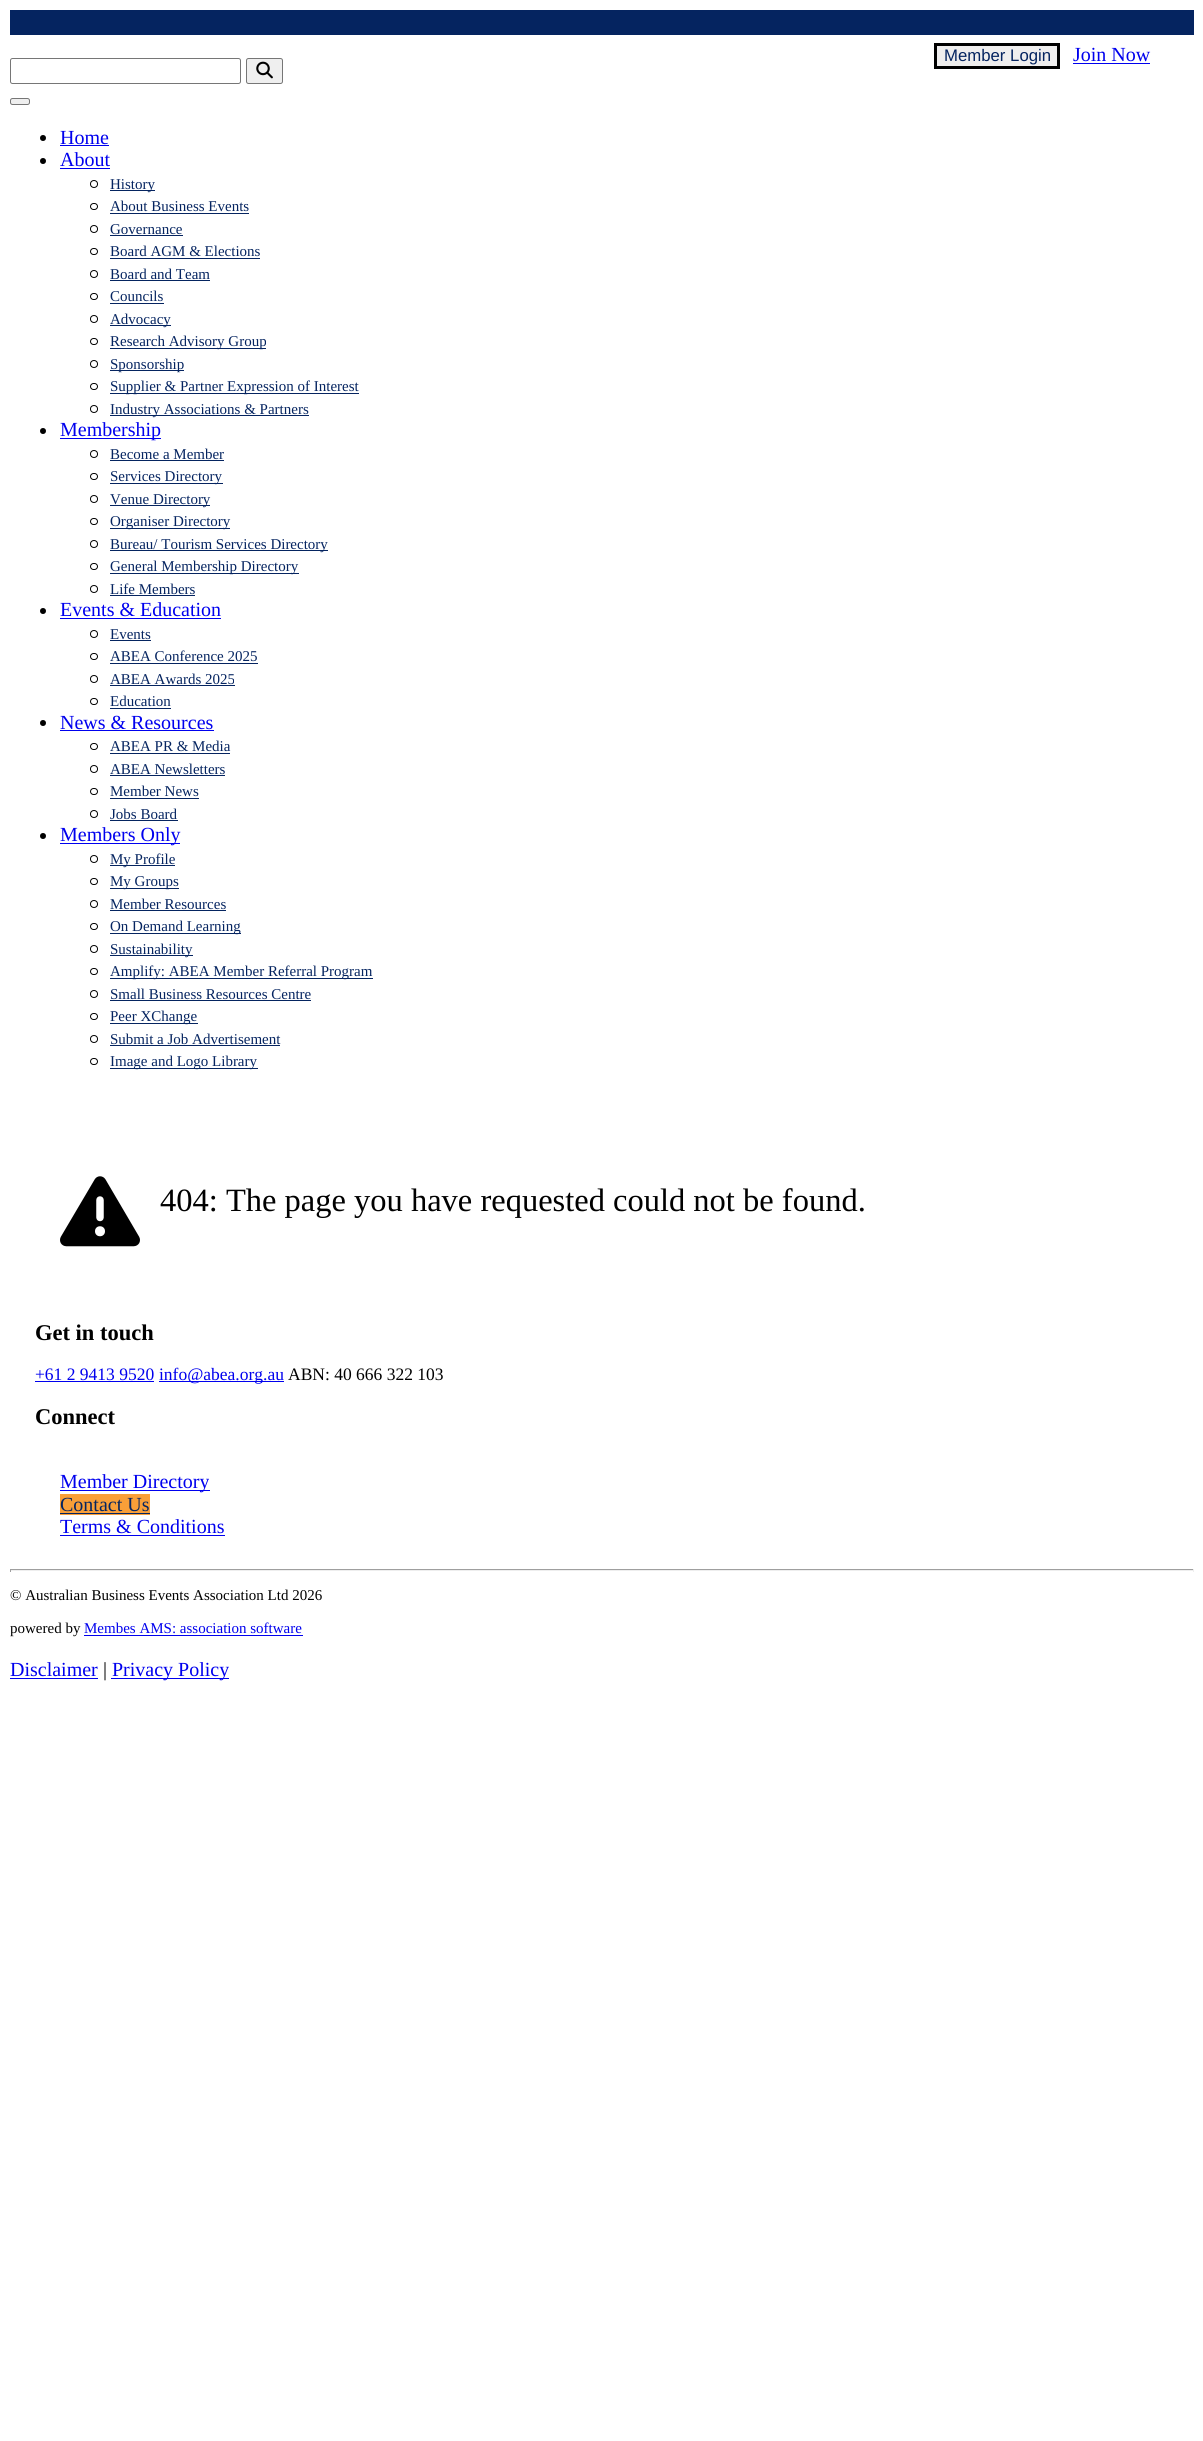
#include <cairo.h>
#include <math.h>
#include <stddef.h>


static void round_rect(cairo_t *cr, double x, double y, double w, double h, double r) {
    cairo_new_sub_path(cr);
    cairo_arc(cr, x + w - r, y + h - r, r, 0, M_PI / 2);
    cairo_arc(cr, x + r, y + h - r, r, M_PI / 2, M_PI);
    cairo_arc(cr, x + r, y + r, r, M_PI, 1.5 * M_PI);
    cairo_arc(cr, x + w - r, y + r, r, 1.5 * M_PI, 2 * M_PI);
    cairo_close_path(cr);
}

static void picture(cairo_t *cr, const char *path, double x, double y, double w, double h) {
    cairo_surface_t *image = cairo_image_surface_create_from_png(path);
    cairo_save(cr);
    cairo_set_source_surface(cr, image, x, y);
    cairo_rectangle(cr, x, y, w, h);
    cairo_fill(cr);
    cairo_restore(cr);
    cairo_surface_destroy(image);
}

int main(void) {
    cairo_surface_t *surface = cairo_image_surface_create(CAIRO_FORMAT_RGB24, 1203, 2441);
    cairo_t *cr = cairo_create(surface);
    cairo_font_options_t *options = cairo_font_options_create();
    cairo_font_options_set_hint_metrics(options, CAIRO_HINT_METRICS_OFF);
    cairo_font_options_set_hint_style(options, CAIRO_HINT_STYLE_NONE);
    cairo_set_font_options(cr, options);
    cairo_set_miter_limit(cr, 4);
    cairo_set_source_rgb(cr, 1, 1, 1);
    cairo_paint(cr);
    cairo_set_source_rgb(cr, 0.02, 0.141, 0.376);
    cairo_rectangle(cr, 10, 10, 1184, 25);
    cairo_fill(cr);
    cairo_set_source_rgb(cr, 0.937, 0.933, 0.933);
    cairo_rectangle(cr, 935.5, 44.5, 123, 23);
    cairo_fill_preserve(cr);
    cairo_set_source_rgb(cr, 0, 0, 0);
    cairo_set_line_width(cr, 3);
    cairo_stroke(cr);
    cairo_select_font_face(cr, "Liberation Sans", CAIRO_FONT_SLANT_NORMAL, CAIRO_FONT_WEIGHT_NORMAL);
    cairo_set_font_size(cr, 16.75);
    cairo_set_source_rgb(cr, 0.02, 0.141, 0.376);
    cairo_move_to(cr, 944, 61);
    cairo_show_text(cr, "Member Login");
    cairo_select_font_face(cr, "Liberation Serif", CAIRO_FONT_SLANT_NORMAL, CAIRO_FONT_WEIGHT_NORMAL);
    cairo_set_font_size(cr, 20);
    cairo_set_source_rgb(cr, 0, 0, 0.933);
    cairo_move_to(cr, 1073, 61);
    cairo_show_text(cr, "Join Now");
    cairo_rectangle(cr, 1073, 63, 77, 1);
    cairo_fill(cr);
    round_rect(cr, 10.5, 58.5, 230, 25, 2);
    cairo_set_source_rgb(cr, 0.463, 0.463, 0.463);
    cairo_set_line_width(cr, 1);
    cairo_stroke(cr);
    cairo_set_source_rgb(cr, 0.937, 0.937, 0.937);
    round_rect(cr, 246.5, 58.5, 36, 25, 2);
    cairo_fill_preserve(cr);
    cairo_set_source_rgb(cr, 0.463, 0.463, 0.463);
    cairo_stroke(cr);
    picture(cr, "img1.png", 256, 61, 17, 18);
    cairo_set_source_rgb(cr, 0.937, 0.937, 0.937);
    round_rect(cr, 10.5, 98.5, 19, 6, 2);
    cairo_fill_preserve(cr);
    cairo_set_source_rgb(cr, 0.463, 0.463, 0.463);
    cairo_stroke(cr);
    cairo_set_source_rgb(cr, 0, 0, 0);
    cairo_arc(cr, 43, 138, 3, 0, 2 * M_PI);
    cairo_fill(cr);
    cairo_set_source_rgb(cr, 0, 0, 0.933);
    cairo_move_to(cr, 60, 144);
    cairo_show_text(cr, "Home");
    cairo_rectangle(cr, 60, 145, 49, 1);
    cairo_fill(cr);
    cairo_set_source_rgb(cr, 0, 0, 0);
    cairo_arc(cr, 43, 161, 3, 0, 2 * M_PI);
    cairo_fill(cr);
    cairo_set_source_rgb(cr, 0, 0, 0.933);
    cairo_move_to(cr, 60, 166);
    cairo_show_text(cr, "About");
    cairo_rectangle(cr, 60, 168, 50, 1);
    cairo_fill(cr);
    cairo_arc(cr, 94, 184, 3.5, 0, 2 * M_PI);
    cairo_set_source_rgb(cr, 0, 0, 0);
    cairo_stroke(cr);
    cairo_set_source_rgb(cr, 0.02, 0.141, 0.376);
    cairo_rectangle(cr, 110, 190, 45, 1);
    cairo_fill(cr);
    cairo_set_font_size(cr, 15);
    cairo_move_to(cr, 110, 189);
    cairo_show_text(cr, "History");
    round_rect(cr, 90.5, 203.5, 7, 6, 3);
    cairo_set_source_rgb(cr, 0, 0, 0);
    cairo_stroke(cr);
    cairo_set_source_rgb(cr, 0.02, 0.141, 0.376);
    cairo_move_to(cr, 110, 211);
    cairo_show_text(cr, "About Business Events");
    cairo_rectangle(cr, 110, 213, 139, 1);
    cairo_fill(cr);
    cairo_arc(cr, 94, 229, 3.5, 0, 2 * M_PI);
    cairo_set_source_rgb(cr, 0, 0, 0);
    cairo_stroke(cr);
    cairo_set_source_rgb(cr, 0.02, 0.141, 0.376);
    cairo_move_to(cr, 110, 234);
    cairo_show_text(cr, "Governance");
    cairo_rectangle(cr, 110, 235, 73, 1);
    cairo_fill(cr);
    round_rect(cr, 90.5, 248.5, 7, 6, 3);
    cairo_set_source_rgb(cr, 0, 0, 0);
    cairo_stroke(cr);
    cairo_set_source_rgb(cr, 0.02, 0.141, 0.376);
    cairo_move_to(cr, 110, 256);
    cairo_show_text(cr, "Board AGM & Elections");
    cairo_rectangle(cr, 110, 258, 150, 1);
    cairo_fill(cr);
    cairo_arc(cr, 94, 274, 3.5, 0, 2 * M_PI);
    cairo_set_source_rgb(cr, 0, 0, 0);
    cairo_stroke(cr);
    cairo_set_source_rgb(cr, 0.02, 0.141, 0.376);
    cairo_move_to(cr, 110, 279);
    cairo_show_text(cr, "Board and Team");
    cairo_rectangle(cr, 110, 280, 100, 1);
    cairo_fill(cr);
    round_rect(cr, 90.5, 293.5, 7, 6, 3);
    cairo_set_source_rgb(cr, 0, 0, 0);
    cairo_stroke(cr);
    cairo_set_source_rgb(cr, 0.02, 0.141, 0.376);
    cairo_move_to(cr, 110, 301);
    cairo_show_text(cr, "Councils");
    cairo_rectangle(cr, 110, 303, 54, 1);
    cairo_fill(cr);
    cairo_arc(cr, 94, 319, 3.5, 0, 2 * M_PI);
    cairo_set_source_rgb(cr, 0, 0, 0);
    cairo_stroke(cr);
    cairo_set_source_rgb(cr, 0.02, 0.141, 0.376);
    cairo_rectangle(cr, 110, 325, 61, 1);
    cairo_fill(cr);
    cairo_move_to(cr, 110, 324);
    cairo_show_text(cr, "Advocacy");
    round_rect(cr, 90.5, 338.5, 7, 6, 3);
    cairo_set_source_rgb(cr, 0, 0, 0);
    cairo_stroke(cr);
    cairo_set_source_rgb(cr, 0.02, 0.141, 0.376);
    cairo_rectangle(cr, 110, 348, 156, 1);
    cairo_fill(cr);
    cairo_move_to(cr, 110, 346);
    cairo_show_text(cr, "Research Advisory Group");
    cairo_new_path(cr);
    cairo_arc(cr, 94, 364, 3.5, 0, 2 * M_PI);
    cairo_set_source_rgb(cr, 0, 0, 0);
    cairo_stroke(cr);
    cairo_set_source_rgb(cr, 0.02, 0.141, 0.376);
    cairo_rectangle(cr, 110, 370, 74, 1);
    cairo_fill(cr);
    cairo_move_to(cr, 110, 369);
    cairo_show_text(cr, "Sponsorship");
    round_rect(cr, 90.5, 383.5, 7, 6, 3);
    cairo_set_source_rgb(cr, 0, 0, 0);
    cairo_stroke(cr);
    cairo_set_source_rgb(cr, 0.02, 0.141, 0.376);
    cairo_rectangle(cr, 110, 393, 249, 1);
    cairo_fill(cr);
    cairo_move_to(cr, 110, 391);
    cairo_show_text(cr, "Supplier & Partner Expression of Interest");
    cairo_new_path(cr);
    cairo_arc(cr, 94, 409, 3.5, 0, 2 * M_PI);
    cairo_set_source_rgb(cr, 0, 0, 0);
    cairo_stroke(cr);
    cairo_set_source_rgb(cr, 0.02, 0.141, 0.376);
    cairo_rectangle(cr, 110, 415, 199, 1);
    cairo_fill(cr);
    cairo_move_to(cr, 110, 414);
    cairo_show_text(cr, "Industry Associations & Partners");
    cairo_set_source_rgb(cr, 0, 0, 0);
    cairo_new_path(cr);
    cairo_arc(cr, 43, 431, 3, 0, 2 * M_PI);
    cairo_fill(cr);
    cairo_set_source_rgb(cr, 0, 0, 0.933);
    cairo_rectangle(cr, 60, 438, 101, 1);
    cairo_fill(cr);
    cairo_set_font_size(cr, 20);
    cairo_move_to(cr, 60, 436);
    cairo_show_text(cr, "Membership");
    cairo_new_path(cr);
    cairo_arc(cr, 94, 454, 3.5, 0, 2 * M_PI);
    cairo_set_source_rgb(cr, 0, 0, 0);
    cairo_stroke(cr);
    cairo_set_font_size(cr, 15);
    cairo_set_source_rgb(cr, 0.02, 0.141, 0.376);
    cairo_move_to(cr, 110, 459);
    cairo_show_text(cr, "Become a Member");
    cairo_rectangle(cr, 110, 460, 114, 1);
    cairo_fill(cr);
    round_rect(cr, 90.5, 473.5, 7, 6, 3);
    cairo_set_source_rgb(cr, 0, 0, 0);
    cairo_stroke(cr);
    cairo_set_source_rgb(cr, 0.02, 0.141, 0.376);
    cairo_rectangle(cr, 110, 483, 113, 1);
    cairo_fill(cr);
    cairo_move_to(cr, 110, 481);
    cairo_show_text(cr, "Services Directory");
    cairo_new_path(cr);
    cairo_arc(cr, 94, 499, 3.5, 0, 2 * M_PI);
    cairo_set_source_rgb(cr, 0, 0, 0);
    cairo_stroke(cr);
    cairo_set_source_rgb(cr, 0.02, 0.141, 0.376);
    cairo_rectangle(cr, 110, 505, 100, 1);
    cairo_fill(cr);
    cairo_move_to(cr, 110, 504);
    cairo_show_text(cr, "Venue Directory");
    round_rect(cr, 90.5, 518.5, 7, 6, 3);
    cairo_set_source_rgb(cr, 0, 0, 0);
    cairo_stroke(cr);
    cairo_set_source_rgb(cr, 0.02, 0.141, 0.376);
    cairo_rectangle(cr, 110, 528, 120, 1);
    cairo_fill(cr);
    cairo_move_to(cr, 110, 526);
    cairo_show_text(cr, "Organiser Directory");
    cairo_new_path(cr);
    cairo_arc(cr, 94, 544, 3.5, 0, 2 * M_PI);
    cairo_set_source_rgb(cr, 0, 0, 0);
    cairo_stroke(cr);
    cairo_set_source_rgb(cr, 0.02, 0.141, 0.376);
    cairo_rectangle(cr, 110, 550, 218, 1);
    cairo_fill(cr);
    cairo_move_to(cr, 110, 549);
    cairo_show_text(cr, "Bureau/ Tourism Services Directory");
    round_rect(cr, 90.5, 563.5, 7, 6, 3);
    cairo_set_source_rgb(cr, 0, 0, 0);
    cairo_stroke(cr);
    cairo_set_source_rgb(cr, 0.02, 0.141, 0.376);
    cairo_rectangle(cr, 110, 573, 189, 1);
    cairo_fill(cr);
    cairo_move_to(cr, 110, 571);
    cairo_show_text(cr, "General Membership Directory");
    cairo_new_path(cr);
    cairo_arc(cr, 94, 589, 3.5, 0, 2 * M_PI);
    cairo_set_source_rgb(cr, 0, 0, 0);
    cairo_stroke(cr);
    cairo_set_source_rgb(cr, 0.02, 0.141, 0.376);
    cairo_move_to(cr, 110, 594);
    cairo_show_text(cr, "Life Members");
    cairo_rectangle(cr, 110, 595, 85, 1);
    cairo_fill(cr);
    cairo_set_source_rgb(cr, 0, 0, 0);
    cairo_arc(cr, 43, 611, 3, 0, 2 * M_PI);
    cairo_fill(cr);
    cairo_set_font_size(cr, 20);
    cairo_set_source_rgb(cr, 0, 0, 0.933);
    cairo_move_to(cr, 60, 616);
    cairo_show_text(cr, "Events & Education");
    cairo_rectangle(cr, 60, 618, 161, 1);
    cairo_fill(cr);
    cairo_arc(cr, 94, 634, 3.5, 0, 2 * M_PI);
    cairo_set_source_rgb(cr, 0, 0, 0);
    cairo_stroke(cr);
    cairo_set_font_size(cr, 15);
    cairo_set_source_rgb(cr, 0.02, 0.141, 0.376);
    cairo_move_to(cr, 110, 639);
    cairo_show_text(cr, "Events");
    cairo_rectangle(cr, 110, 640, 41, 1);
    cairo_fill(cr);
    round_rect(cr, 90.5, 653.5, 7, 6, 3);
    cairo_set_source_rgb(cr, 0, 0, 0);
    cairo_stroke(cr);
    cairo_set_source_rgb(cr, 0.02, 0.141, 0.376);
    cairo_move_to(cr, 110, 661);
    cairo_show_text(cr, "ABEA Conference 2025");
    cairo_rectangle(cr, 110, 663, 148, 1);
    cairo_fill(cr);
    cairo_arc(cr, 94, 679, 3.5, 0, 2 * M_PI);
    cairo_set_source_rgb(cr, 0, 0, 0);
    cairo_stroke(cr);
    cairo_set_source_rgb(cr, 0.02, 0.141, 0.376);
    cairo_move_to(cr, 110, 684);
    cairo_show_text(cr, "ABEA Awards 2025");
    cairo_rectangle(cr, 110, 685, 125, 1);
    cairo_fill(cr);
    round_rect(cr, 90.5, 698.5, 7, 6, 3);
    cairo_set_source_rgb(cr, 0, 0, 0);
    cairo_stroke(cr);
    cairo_set_source_rgb(cr, 0.02, 0.141, 0.376);
    cairo_move_to(cr, 110, 706);
    cairo_show_text(cr, "Education");
    cairo_rectangle(cr, 110, 708, 61, 1);
    cairo_fill(cr);
    cairo_set_source_rgb(cr, 0, 0, 0);
    cairo_arc(cr, 43, 723, 3, 0, 2 * M_PI);
    cairo_fill(cr);
    cairo_set_font_size(cr, 20);
    cairo_set_source_rgb(cr, 0, 0, 0.933);
    cairo_move_to(cr, 60, 729);
    cairo_show_text(cr, "News & Resources");
    cairo_rectangle(cr, 60, 730, 154, 1);
    cairo_fill(cr);
    round_rect(cr, 90.5, 743.5, 7, 6, 3);
    cairo_set_source_rgb(cr, 0, 0, 0);
    cairo_stroke(cr);
    cairo_set_font_size(cr, 15);
    cairo_set_source_rgb(cr, 0.02, 0.141, 0.376);
    cairo_move_to(cr, 110, 751);
    cairo_show_text(cr, "ABEA PR & Media");
    cairo_rectangle(cr, 110, 753, 120, 1);
    cairo_fill(cr);
    cairo_arc(cr, 94, 769, 3.5, 0, 2 * M_PI);
    cairo_set_source_rgb(cr, 0, 0, 0);
    cairo_stroke(cr);
    cairo_set_source_rgb(cr, 0.02, 0.141, 0.376);
    cairo_move_to(cr, 110, 774);
    cairo_show_text(cr, "ABEA Newsletters");
    cairo_rectangle(cr, 110, 775, 115, 1);
    cairo_fill(cr);
    round_rect(cr, 90.5, 788.5, 7, 6, 3);
    cairo_set_source_rgb(cr, 0, 0, 0);
    cairo_stroke(cr);
    cairo_set_source_rgb(cr, 0.02, 0.141, 0.376);
    cairo_move_to(cr, 110, 796);
    cairo_show_text(cr, "Member News");
    cairo_rectangle(cr, 110, 798, 89, 1);
    cairo_fill(cr);
    cairo_arc(cr, 94, 814, 3.5, 0, 2 * M_PI);
    cairo_set_source_rgb(cr, 0, 0, 0);
    cairo_stroke(cr);
    cairo_set_source_rgb(cr, 0.02, 0.141, 0.376);
    cairo_move_to(cr, 110, 819);
    cairo_show_text(cr, "Jobs Board");
    cairo_rectangle(cr, 110, 820, 68, 1);
    cairo_fill(cr);
    cairo_set_source_rgb(cr, 0, 0, 0);
    cairo_arc(cr, 43, 836, 3, 0, 2 * M_PI);
    cairo_fill(cr);
    cairo_set_source_rgb(cr, 0, 0, 0.933);
    cairo_rectangle(cr, 60, 843, 120, 1);
    cairo_fill(cr);
    cairo_set_font_size(cr, 20);
    cairo_move_to(cr, 60, 841);
    cairo_show_text(cr, "Members Only");
    cairo_new_path(cr);
    cairo_arc(cr, 94, 859, 3.5, 0, 2 * M_PI);
    cairo_set_source_rgb(cr, 0, 0, 0);
    cairo_stroke(cr);
    cairo_set_source_rgb(cr, 0.02, 0.141, 0.376);
    cairo_rectangle(cr, 110, 865, 65, 1);
    cairo_fill(cr);
    cairo_set_font_size(cr, 15);
    cairo_move_to(cr, 110, 864);
    cairo_show_text(cr, "My Profile");
    round_rect(cr, 90.5, 878.5, 7, 6, 3);
    cairo_set_source_rgb(cr, 0, 0, 0);
    cairo_stroke(cr);
    cairo_set_source_rgb(cr, 0.02, 0.141, 0.376);
    cairo_rectangle(cr, 110, 888, 69, 1);
    cairo_fill(cr);
    cairo_move_to(cr, 110, 886);
    cairo_show_text(cr, "My Groups");
    cairo_new_path(cr);
    cairo_arc(cr, 94, 904, 3.5, 0, 2 * M_PI);
    cairo_set_source_rgb(cr, 0, 0, 0);
    cairo_stroke(cr);
    cairo_set_source_rgb(cr, 0.02, 0.141, 0.376);
    cairo_move_to(cr, 110, 909);
    cairo_show_text(cr, "Member Resources");
    cairo_rectangle(cr, 110, 910, 116, 1);
    cairo_fill(cr);
    round_rect(cr, 90.5, 923.5, 7, 6, 3);
    cairo_set_source_rgb(cr, 0, 0, 0);
    cairo_stroke(cr);
    cairo_set_source_rgb(cr, 0.02, 0.141, 0.376);
    cairo_rectangle(cr, 110, 933, 131, 1);
    cairo_fill(cr);
    cairo_move_to(cr, 110, 931);
    cairo_show_text(cr, "On Demand Learning");
    cairo_new_path(cr);
    cairo_arc(cr, 94, 949, 3.5, 0, 2 * M_PI);
    cairo_set_source_rgb(cr, 0, 0, 0);
    cairo_stroke(cr);
    cairo_set_source_rgb(cr, 0.02, 0.141, 0.376);
    cairo_rectangle(cr, 110, 955, 83, 1);
    cairo_fill(cr);
    cairo_move_to(cr, 110, 954);
    cairo_show_text(cr, "Sustainability");
    round_rect(cr, 90.5, 968.5, 7, 6, 3);
    cairo_set_source_rgb(cr, 0, 0, 0);
    cairo_stroke(cr);
    cairo_set_source_rgb(cr, 0.02, 0.141, 0.376);
    cairo_rectangle(cr, 110, 978, 263, 1);
    cairo_fill(cr);
    cairo_move_to(cr, 110, 976);
    cairo_show_text(cr, "Amplify: ABEA Member Referral Program");
    cairo_new_path(cr);
    cairo_arc(cr, 94, 994, 3.5, 0, 2 * M_PI);
    cairo_set_source_rgb(cr, 0, 0, 0);
    cairo_stroke(cr);
    cairo_set_source_rgb(cr, 0.02, 0.141, 0.376);
    cairo_move_to(cr, 110, 999);
    cairo_show_text(cr, "Small Business Resources Centre");
    cairo_rectangle(cr, 110, 1000, 201, 1);
    cairo_fill(cr);
    round_rect(cr, 90.5, 1013.5, 7, 6, 3);
    cairo_set_source_rgb(cr, 0, 0, 0);
    cairo_stroke(cr);
    cairo_set_source_rgb(cr, 0.02, 0.141, 0.376);
    cairo_rectangle(cr, 110, 1023, 88, 1);
    cairo_fill(cr);
    cairo_move_to(cr, 110, 1021);
    cairo_show_text(cr, "Peer XChange");
    cairo_new_path(cr);
    cairo_arc(cr, 94, 1039, 3.5, 0, 2 * M_PI);
    cairo_set_source_rgb(cr, 0, 0, 0);
    cairo_stroke(cr);
    cairo_set_source_rgb(cr, 0.02, 0.141, 0.376);
    cairo_move_to(cr, 110, 1044);
    cairo_show_text(cr, "Submit a Job Advertisement");
    cairo_rectangle(cr, 110, 1045, 170, 1);
    cairo_fill(cr);
    round_rect(cr, 90.5, 1058.5, 7, 6, 3);
    cairo_set_source_rgb(cr, 0, 0, 0);
    cairo_stroke(cr);
    cairo_set_source_rgb(cr, 0.02, 0.141, 0.376);
    cairo_rectangle(cr, 110, 1068, 148, 1);
    cairo_fill(cr);
    cairo_move_to(cr, 110, 1066);
    cairo_show_text(cr, "Image and Logo Library");
    picture(cr, "img2.png", 60, 1176, 80, 71);
    cairo_set_font_size(cr, 32.5);
    cairo_set_source_rgb(cr, 0, 0, 0);
    cairo_move_to(cr, 160, 1211);
    cairo_show_text(cr, "404: The page you have requested could not be found.");
    cairo_select_font_face(cr, "Liberation Serif", CAIRO_FONT_SLANT_NORMAL, CAIRO_FONT_WEIGHT_BOLD);
    cairo_set_font_size(cr, 22.5);
    cairo_move_to(cr, 35, 1340);
    cairo_show_text(cr, "Get in touch");
    cairo_select_font_face(cr, "Liberation Serif", CAIRO_FONT_SLANT_NORMAL, CAIRO_FONT_WEIGHT_NORMAL);
    cairo_set_font_size(cr, 17.5);
    cairo_set_source_rgb(cr, 0, 0, 0.933);
    cairo_move_to(cr, 35, 1380);
    cairo_show_text(cr, "+61 2 9413 9520");
    cairo_rectangle(cr, 35, 1381, 119, 1);
    cairo_fill(cr);
    cairo_rectangle(cr, 159, 1381, 125, 1);
    cairo_fill(cr);
    cairo_move_to(cr, 159, 1380);
    cairo_show_text(cr, "info@abea.org.au");
    cairo_set_source_rgb(cr, 0, 0, 0);
    cairo_move_to(cr, 288, 1380);
    cairo_show_text(cr, "ABN: 40 666 322 103");
    cairo_select_font_face(cr, "Liberation Serif", CAIRO_FONT_SLANT_NORMAL, CAIRO_FONT_WEIGHT_BOLD);
    cairo_set_font_size(cr, 22.5);
    cairo_move_to(cr, 35, 1424);
    cairo_show_text(cr, "Connect");
    cairo_set_source_rgb(cr, 0, 0, 0.933);
    cairo_rectangle(cr, 60, 1490, 150, 1);
    cairo_fill(cr);
    cairo_select_font_face(cr, "Liberation Serif", CAIRO_FONT_SLANT_NORMAL, CAIRO_FONT_WEIGHT_NORMAL);
    cairo_set_font_size(cr, 20);
    cairo_move_to(cr, 60, 1488);
    cairo_show_text(cr, "Member Directory");
    cairo_set_source_rgb(cr, 0.976, 0.624, 0.22);
    cairo_rectangle(cr, 60, 1494, 90, 21);
    cairo_fill(cr);
    cairo_set_source_rgb(cr, 0.02, 0.141, 0.376);
    cairo_move_to(cr, 60, 1511);
    cairo_show_text(cr, "Contact Us");
    cairo_rectangle(cr, 60, 1513, 90, 1);
    cairo_fill(cr);
    cairo_set_source_rgb(cr, 0, 0, 0.933);
    cairo_move_to(cr, 60, 1533);
    cairo_show_text(cr, "Terms & Conditions");
    cairo_rectangle(cr, 60, 1535, 165, 1);
    cairo_fill(cr);
    cairo_set_source_rgb(cr, 0.624, 0.624, 0.624);
    cairo_rectangle(cr, 10, 1569, 1184, 1);
    cairo_fill(cr);
    cairo_set_source_rgb(cr, 0.933, 0.933, 0.933);
    cairo_rectangle(cr, 1193, 1569, 1, 3);
    cairo_fill(cr);
    cairo_rectangle(cr, 10, 1570, 1184, 1);
    cairo_fill(cr);
    cairo_set_source_rgb(cr, 0.624, 0.624, 0.624);
    cairo_rectangle(cr, 10, 1569, 1, 3);
    cairo_fill(cr);
    cairo_set_font_size(cr, 15);
    cairo_set_source_rgb(cr, 0, 0, 0);
    cairo_move_to(cr, 10, 1600);
    cairo_show_text(cr, "© Australian Business Events Association Ltd 2026");
    cairo_move_to(cr, 10, 1633);
    cairo_show_text(cr, "powered by");
    cairo_set_source_rgb(cr, 0, 0, 0.933);
    cairo_move_to(cr, 84, 1633);
    cairo_show_text(cr, "Membes AMS: association software");
    cairo_rectangle(cr, 84, 1635, 219, 1);
    cairo_fill(cr);
    cairo_set_font_size(cr, 20);
    cairo_move_to(cr, 10, 1676);
    cairo_show_text(cr, "Disclaimer");
    cairo_rectangle(cr, 10, 1678, 88, 1);
    cairo_fill(cr);
    cairo_set_source_rgb(cr, 0, 0, 0);
    cairo_move_to(cr, 103, 1676);
    cairo_show_text(cr, "|");
    cairo_set_source_rgb(cr, 0, 0, 0.933);
    cairo_rectangle(cr, 111, 1678, 118, 1);
    cairo_fill(cr);
    cairo_move_to(cr, 112, 1676);
    cairo_show_text(cr, "Privacy Policy");
    cairo_surface_write_to_png(surface, "page.png");
    cairo_font_options_destroy(options);
    cairo_destroy(cr);
    cairo_surface_destroy(surface);
    return 0;
}
